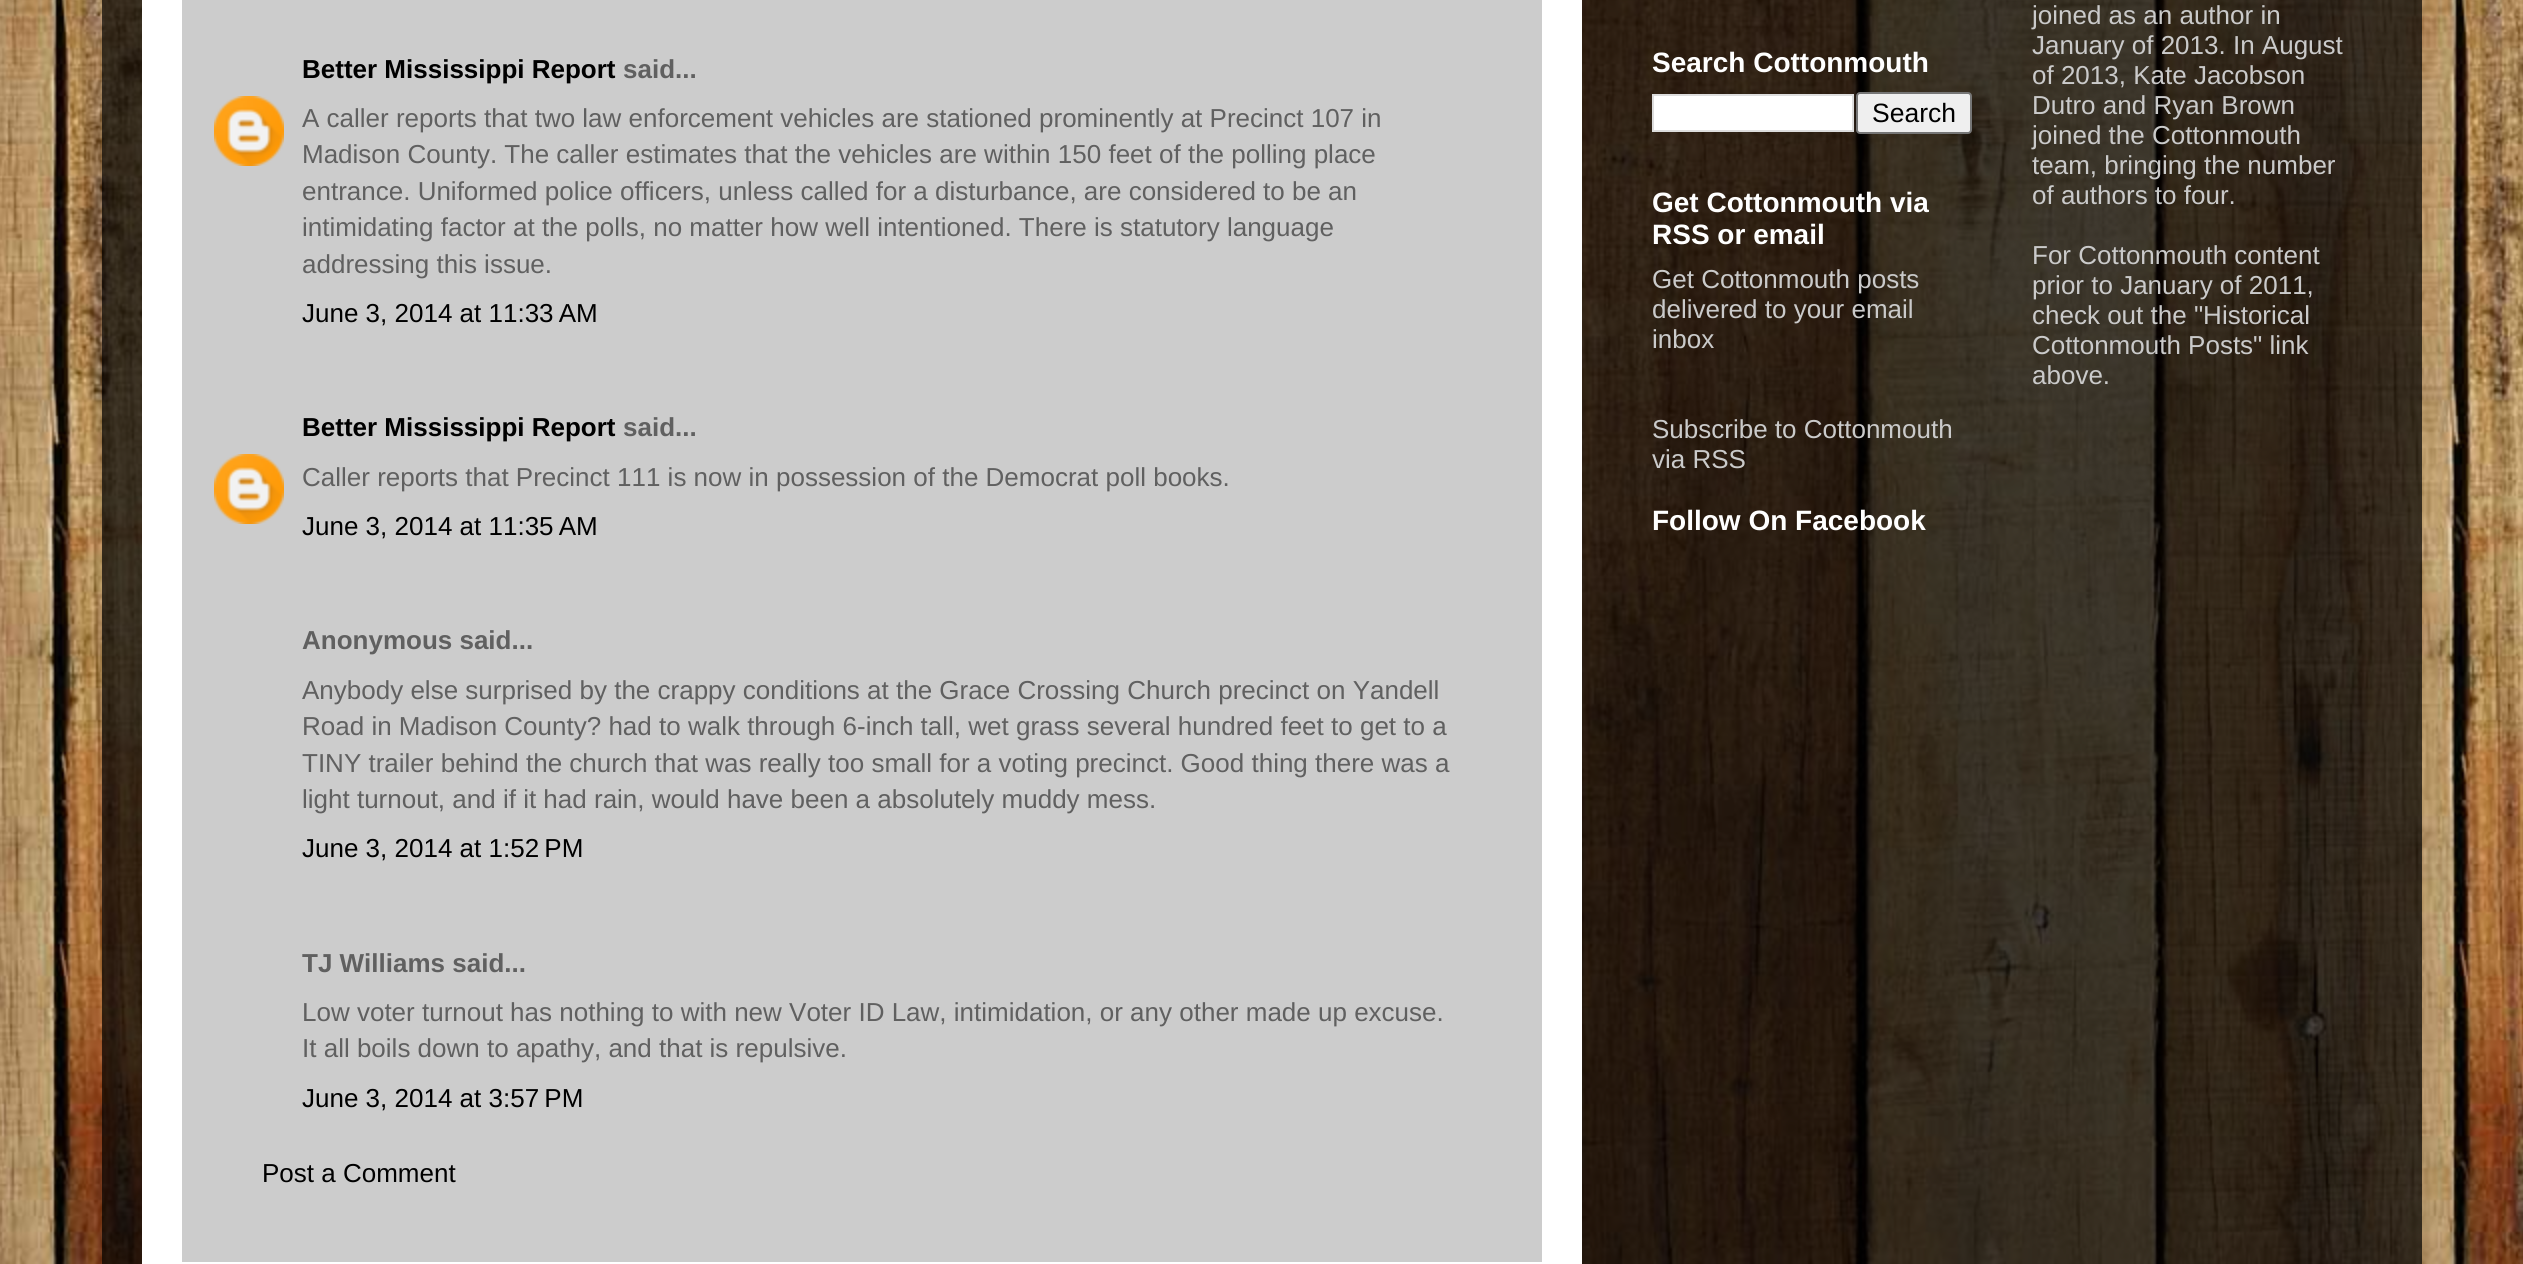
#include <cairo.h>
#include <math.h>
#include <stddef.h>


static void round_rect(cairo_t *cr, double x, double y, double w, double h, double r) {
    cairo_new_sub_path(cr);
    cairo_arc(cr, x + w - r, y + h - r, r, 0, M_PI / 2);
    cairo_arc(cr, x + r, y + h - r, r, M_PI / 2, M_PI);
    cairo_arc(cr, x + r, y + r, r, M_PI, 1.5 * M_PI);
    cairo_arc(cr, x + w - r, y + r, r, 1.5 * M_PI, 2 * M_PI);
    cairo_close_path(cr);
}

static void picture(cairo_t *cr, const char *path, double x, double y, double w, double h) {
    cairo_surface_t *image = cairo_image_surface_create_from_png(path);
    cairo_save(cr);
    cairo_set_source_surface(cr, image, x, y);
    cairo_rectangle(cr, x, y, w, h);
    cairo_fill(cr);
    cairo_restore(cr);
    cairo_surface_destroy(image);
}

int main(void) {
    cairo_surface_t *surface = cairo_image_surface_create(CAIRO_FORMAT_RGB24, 2523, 1264);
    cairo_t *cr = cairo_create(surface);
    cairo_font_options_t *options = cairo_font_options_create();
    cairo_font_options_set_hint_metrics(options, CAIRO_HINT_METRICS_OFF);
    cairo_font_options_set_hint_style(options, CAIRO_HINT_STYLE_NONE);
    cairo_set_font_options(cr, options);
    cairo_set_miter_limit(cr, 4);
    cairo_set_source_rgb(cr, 1, 1, 1);
    cairo_paint(cr);
    picture(cr, "img1.png", 0, 0, 2523, 1264);
    cairo_set_source_rgb(cr, 1, 1, 1);
    cairo_rectangle(cr, 142, 0, 1440, 1264);
    cairo_fill(cr);
    cairo_set_source_rgb(cr, 0.8, 0.8, 0.8);
    cairo_rectangle(cr, 182, 0, 1360, 1262);
    cairo_fill(cr);
    cairo_select_font_face(cr, "Liberation Sans", CAIRO_FONT_SLANT_NORMAL, CAIRO_FONT_WEIGHT_BOLD);
    cairo_set_font_size(cr, 26);
    cairo_set_source_rgb(cr, 0, 0, 0);
    cairo_move_to(cr, 302, 78);
    cairo_show_text(cr, "Better Mississippi Report");
    cairo_set_source_rgb(cr, 0.376, 0.376, 0.376);
    cairo_move_to(cr, 623, 78);
    cairo_show_text(cr, "said...");
    picture(cr, "img2.png", 214, 96, 70, 70);
    cairo_select_font_face(cr, "Liberation Sans", CAIRO_FONT_SLANT_NORMAL, CAIRO_FONT_WEIGHT_NORMAL);
    cairo_move_to(cr, 302, 127);
    cairo_show_text(cr, "A caller reports that two law enforcement vehicles are stationed prominently at Precinct 107 in");
    cairo_move_to(cr, 302, 163);
    cairo_show_text(cr, "Madison County. The caller estimates that the vehicles are within 150 feet of the polling place");
    cairo_move_to(cr, 302, 200);
    cairo_show_text(cr, "entrance. Uniformed police officers, unless called for a disturbance, are considered to be an");
    cairo_move_to(cr, 302, 236);
    cairo_show_text(cr, "intimidating factor at the polls, no matter how well intentioned. There is statutory language");
    cairo_move_to(cr, 302, 273);
    cairo_show_text(cr, "addressing this issue.");
    cairo_set_source_rgb(cr, 0, 0, 0);
    cairo_move_to(cr, 302, 322);
    cairo_show_text(cr, "June 3, 2014 at 11:33 AM");
    cairo_select_font_face(cr, "Liberation Sans", CAIRO_FONT_SLANT_NORMAL, CAIRO_FONT_WEIGHT_BOLD);
    cairo_move_to(cr, 302, 436);
    cairo_show_text(cr, "Better Mississippi Report");
    cairo_set_source_rgb(cr, 0.376, 0.376, 0.376);
    cairo_move_to(cr, 623, 436);
    cairo_show_text(cr, "said...");
    picture(cr, "img2.png", 214, 454, 70, 70);
    cairo_select_font_face(cr, "Liberation Sans", CAIRO_FONT_SLANT_NORMAL, CAIRO_FONT_WEIGHT_NORMAL);
    cairo_move_to(cr, 302, 486);
    cairo_show_text(cr, "Caller reports that Precinct 111 is now in possession of the Democrat poll books.");
    cairo_set_source_rgb(cr, 0, 0, 0);
    cairo_move_to(cr, 302, 535);
    cairo_show_text(cr, "June 3, 2014 at 11:35 AM");
    cairo_select_font_face(cr, "Liberation Sans", CAIRO_FONT_SLANT_NORMAL, CAIRO_FONT_WEIGHT_BOLD);
    cairo_set_source_rgb(cr, 0.376, 0.376, 0.376);
    cairo_move_to(cr, 302, 649);
    cairo_show_text(cr, "Anonymous said...");
    cairo_select_font_face(cr, "Liberation Sans", CAIRO_FONT_SLANT_NORMAL, CAIRO_FONT_WEIGHT_NORMAL);
    cairo_move_to(cr, 302, 699);
    cairo_show_text(cr, "Anybody else surprised by the crappy conditions at the Grace Crossing Church precinct on Yandell");
    cairo_move_to(cr, 302, 735);
    cairo_show_text(cr, "Road in Madison County? had to walk through 6-inch tall, wet grass several hundred feet to get to a");
    cairo_move_to(cr, 302, 772);
    cairo_show_text(cr, "TINY trailer behind the church that was really too small for a voting precinct. Good thing there was a");
    cairo_move_to(cr, 302, 808);
    cairo_show_text(cr, "light turnout, and if it had rain, would have been a absolutely muddy mess.");
    cairo_set_source_rgb(cr, 0, 0, 0);
    cairo_move_to(cr, 302, 857);
    cairo_show_text(cr, "June 3, 2014 at 1:52 PM");
    cairo_select_font_face(cr, "Liberation Sans", CAIRO_FONT_SLANT_NORMAL, CAIRO_FONT_WEIGHT_BOLD);
    cairo_set_source_rgb(cr, 0.376, 0.376, 0.376);
    cairo_move_to(cr, 302, 972);
    cairo_show_text(cr, "TJ Williams said...");
    cairo_select_font_face(cr, "Liberation Sans", CAIRO_FONT_SLANT_NORMAL, CAIRO_FONT_WEIGHT_NORMAL);
    cairo_move_to(cr, 302, 1021);
    cairo_show_text(cr, "Low voter turnout has nothing to with new Voter ID Law, intimidation, or any other made up excuse.");
    cairo_move_to(cr, 302, 1057);
    cairo_show_text(cr, "It all boils down to apathy, and that is repulsive.");
    cairo_set_source_rgb(cr, 0, 0, 0);
    cairo_move_to(cr, 302, 1107);
    cairo_show_text(cr, "June 3, 2014 at 3:57 PM");
    cairo_move_to(cr, 262, 1182);
    cairo_show_text(cr, "Post a Comment");
    cairo_select_font_face(cr, "Liberation Sans", CAIRO_FONT_SLANT_NORMAL, CAIRO_FONT_WEIGHT_BOLD);
    cairo_set_font_size(cr, 28);
    cairo_set_source_rgb(cr, 1, 1, 1);
    cairo_move_to(cr, 1652, 72);
    cairo_show_text(cr, "Search Cottonmouth");
    cairo_rectangle(cr, 1653, 95, 200, 36);
    cairo_fill_preserve(cr);
    cairo_set_source_rgb(cr, 0.867, 0.867, 0.867);
    cairo_stroke(cr);
    cairo_set_source_rgb(cr, 0.937, 0.937, 0.937);
    round_rect(cr, 1857, 93, 114, 40, 3);
    cairo_fill_preserve(cr);
    cairo_set_source_rgb(cr, 0.463, 0.463, 0.463);
    cairo_stroke(cr);
    cairo_select_font_face(cr, "Liberation Sans", CAIRO_FONT_SLANT_NORMAL, CAIRO_FONT_WEIGHT_NORMAL);
    cairo_set_font_size(cr, 26.5);
    cairo_set_source_rgb(cr, 0, 0, 0);
    cairo_move_to(cr, 1872, 122);
    cairo_show_text(cr, "Search");
    cairo_select_font_face(cr, "Liberation Sans", CAIRO_FONT_SLANT_NORMAL, CAIRO_FONT_WEIGHT_BOLD);
    cairo_set_font_size(cr, 28);
    cairo_set_source_rgb(cr, 1, 1, 1);
    cairo_move_to(cr, 1652, 212);
    cairo_show_text(cr, "Get Cottonmouth via");
    cairo_move_to(cr, 1652, 244);
    cairo_show_text(cr, "RSS or email");
    cairo_select_font_face(cr, "Liberation Sans", CAIRO_FONT_SLANT_NORMAL, CAIRO_FONT_WEIGHT_NORMAL);
    cairo_set_font_size(cr, 26);
    cairo_set_source_rgb(cr, 0.792, 0.792, 0.792);
    cairo_move_to(cr, 1652, 288);
    cairo_show_text(cr, "Get Cottonmouth posts");
    cairo_move_to(cr, 1652, 318);
    cairo_show_text(cr, "delivered to your email");
    cairo_move_to(cr, 1652, 348);
    cairo_show_text(cr, "inbox");
    cairo_move_to(cr, 1652, 438);
    cairo_show_text(cr, "Subscribe to Cottonmouth");
    cairo_move_to(cr, 1652, 468);
    cairo_show_text(cr, "via RSS");
    cairo_move_to(cr, 2032, 24);
    cairo_show_text(cr, "joined as an author in");
    cairo_move_to(cr, 2032, 54);
    cairo_show_text(cr, "January of 2013. In August");
    cairo_move_to(cr, 2032, 84);
    cairo_show_text(cr, "of 2013, Kate Jacobson");
    cairo_move_to(cr, 2032, 114);
    cairo_show_text(cr, "Dutro and Ryan Brown");
    cairo_move_to(cr, 2032, 144);
    cairo_show_text(cr, "joined the Cottonmouth");
    cairo_move_to(cr, 2032, 174);
    cairo_show_text(cr, "team, bringing the number");
    cairo_move_to(cr, 2032, 204);
    cairo_show_text(cr, "of authors to four.");
    cairo_move_to(cr, 2032, 264);
    cairo_show_text(cr, "For Cottonmouth content");
    cairo_move_to(cr, 2032, 294);
    cairo_show_text(cr, "prior to January of 2011,");
    cairo_move_to(cr, 2032, 324);
    cairo_show_text(cr, "check out the \"Historical");
    cairo_move_to(cr, 2032, 354);
    cairo_show_text(cr, "Cottonmouth Posts\" link");
    cairo_move_to(cr, 2032, 384);
    cairo_show_text(cr, "above.");
    cairo_select_font_face(cr, "Liberation Sans", CAIRO_FONT_SLANT_NORMAL, CAIRO_FONT_WEIGHT_BOLD);
    cairo_set_font_size(cr, 28);
    cairo_set_source_rgb(cr, 1, 1, 1);
    cairo_move_to(cr, 1652, 530);
    cairo_show_text(cr, "Follow On Facebook");
    cairo_surface_write_to_png(surface, "page.png");
    cairo_font_options_destroy(options);
    cairo_destroy(cr);
    cairo_surface_destroy(surface);
    return 0;
}
